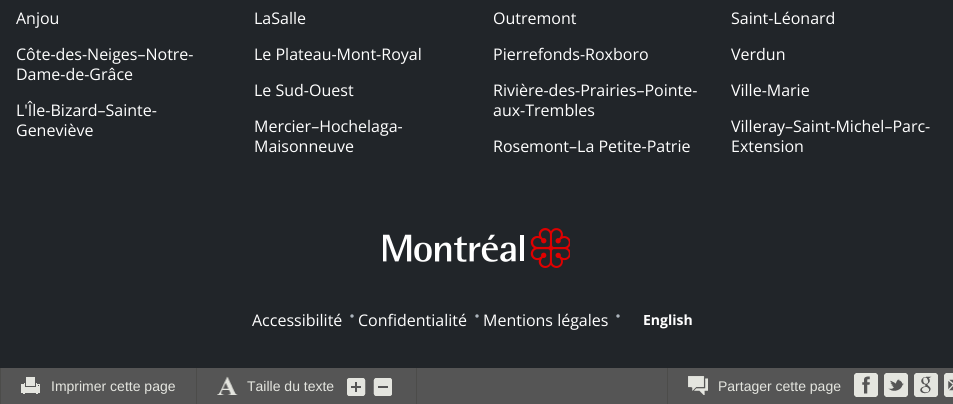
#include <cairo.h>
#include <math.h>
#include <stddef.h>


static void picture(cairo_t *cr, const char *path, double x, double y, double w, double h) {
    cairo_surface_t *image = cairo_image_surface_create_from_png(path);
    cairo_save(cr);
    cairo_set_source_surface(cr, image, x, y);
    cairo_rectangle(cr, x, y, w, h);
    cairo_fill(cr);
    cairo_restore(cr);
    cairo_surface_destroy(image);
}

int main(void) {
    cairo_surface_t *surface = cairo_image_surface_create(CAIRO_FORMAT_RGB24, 953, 404);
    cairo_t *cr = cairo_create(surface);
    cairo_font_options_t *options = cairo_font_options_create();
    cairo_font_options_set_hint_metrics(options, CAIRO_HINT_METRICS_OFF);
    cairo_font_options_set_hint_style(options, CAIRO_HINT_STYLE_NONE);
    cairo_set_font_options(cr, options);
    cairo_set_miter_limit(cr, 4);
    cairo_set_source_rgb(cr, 0.129, 0.145, 0.161);
    cairo_paint(cr);
    cairo_select_font_face(cr, "Open Sans", CAIRO_FONT_SLANT_NORMAL, CAIRO_FONT_WEIGHT_NORMAL);
    cairo_set_font_size(cr, 16);
    cairo_set_source_rgb(cr, 1, 1, 1);
    cairo_move_to(cr, 16, 24);
    cairo_show_text(cr, "Anjou");
    cairo_move_to(cr, 254, 24);
    cairo_show_text(cr, "LaSalle");
    cairo_move_to(cr, 493, 24);
    cairo_show_text(cr, "Outremont");
    cairo_move_to(cr, 731, 24);
    cairo_show_text(cr, "Saint-Léonard");
    cairo_move_to(cr, 16, 60);
    cairo_show_text(cr, "Côte-des-Neiges–Notre-");
    cairo_move_to(cr, 16, 80);
    cairo_show_text(cr, "Dame-de-Grâce");
    cairo_move_to(cr, 254, 60);
    cairo_show_text(cr, "Le Plateau-Mont-Royal");
    cairo_move_to(cr, 493, 60);
    cairo_show_text(cr, "Pierrefonds-Roxboro");
    cairo_move_to(cr, 731, 60);
    cairo_show_text(cr, "Verdun");
    cairo_move_to(cr, 254, 96);
    cairo_show_text(cr, "Le Sud-Ouest");
    cairo_move_to(cr, 493, 96);
    cairo_show_text(cr, "Rivière-des-Prairies–Pointe-");
    cairo_move_to(cr, 493, 116);
    cairo_show_text(cr, "aux-Trembles");
    cairo_move_to(cr, 731, 96);
    cairo_show_text(cr, "Ville-Marie");
    cairo_move_to(cr, 16, 116);
    cairo_show_text(cr, "L'Île-Bizard–Sainte-");
    cairo_move_to(cr, 16, 136);
    cairo_show_text(cr, "Geneviève");
    cairo_move_to(cr, 254, 132);
    cairo_show_text(cr, "Mercier–Hochelaga-");
    cairo_move_to(cr, 254, 152);
    cairo_show_text(cr, "Maisonneuve");
    cairo_move_to(cr, 493, 152);
    cairo_show_text(cr, "Rosemont–La Petite-Patrie");
    cairo_move_to(cr, 731, 132);
    cairo_show_text(cr, "Villeray–Saint-Michel–Parc-");
    cairo_move_to(cr, 731, 152);
    cairo_show_text(cr, "Extension");
    picture(cr, "img1.png", 383, 228, 187, 40);
    cairo_move_to(cr, 252, 326);
    cairo_show_text(cr, "Accessibilité");
    cairo_set_source_rgb(cr, 0.678, 0.71, 0.741);
    cairo_new_path(cr);
    cairo_arc(cr, 352, 316, 1.7, 0, 2 * M_PI);
    cairo_fill(cr);
    cairo_set_source_rgb(cr, 1, 1, 1);
    cairo_move_to(cr, 358, 326);
    cairo_show_text(cr, "Confidentialité");
    cairo_set_source_rgb(cr, 0.678, 0.71, 0.741);
    cairo_new_path(cr);
    cairo_arc(cr, 477, 316, 1.7, 0, 2 * M_PI);
    cairo_fill(cr);
    cairo_set_source_rgb(cr, 1, 1, 1);
    cairo_move_to(cr, 483, 326);
    cairo_show_text(cr, "Mentions légales");
    cairo_set_source_rgb(cr, 0.678, 0.71, 0.741);
    cairo_new_path(cr);
    cairo_arc(cr, 618, 316, 1.7, 0, 2 * M_PI);
    cairo_fill(cr);
    cairo_select_font_face(cr, "Open Sans", CAIRO_FONT_SLANT_NORMAL, CAIRO_FONT_WEIGHT_BOLD);
    cairo_set_font_size(cr, 14);
    cairo_set_source_rgb(cr, 1, 1, 1);
    cairo_move_to(cr, 643, 325);
    cairo_show_text(cr, "English");
    cairo_set_source_rgb(cr, 0.333, 0.333, 0.333);
    cairo_rectangle(cr, 1, 368, 952, 36);
    cairo_fill(cr);
    cairo_set_source_rgb(cr, 0.298, 0.298, 0.29);
    cairo_rectangle(cr, 0, 368, 1, 36);
    cairo_fill(cr);
    cairo_rectangle(cr, 196, 368, 1, 36);
    cairo_fill(cr);
    picture(cr, "img2.png", 21, 377, 19, 17);
    cairo_select_font_face(cr, "Liberation Sans", CAIRO_FONT_SLANT_NORMAL, CAIRO_FONT_WEIGHT_NORMAL);
    cairo_set_source_rgb(cr, 0.894, 0.898, 0.875);
    cairo_move_to(cr, 51, 391);
    cairo_show_text(cr, "Imprimer cette page");
    cairo_set_source_rgb(cr, 0.298, 0.298, 0.29);
    cairo_rectangle(cr, 416, 368, 1, 36);
    cairo_fill(cr);
    picture(cr, "img3.png", 217, 376, 21, 19);
    cairo_set_source_rgb(cr, 0.894, 0.898, 0.875);
    cairo_move_to(cr, 247, 391);
    cairo_show_text(cr, "Taille du texte");
    picture(cr, "img4.png", 347, 378, 19, 18);
    picture(cr, "img5.png", 373, 378, 19, 18);
    cairo_set_source_rgb(cr, 0.298, 0.298, 0.29);
    cairo_rectangle(cr, 667, 368, 1, 36);
    cairo_fill(cr);
    picture(cr, "img6.png", 688, 376, 20, 19);
    cairo_set_source_rgb(cr, 0.894, 0.898, 0.875);
    cairo_move_to(cr, 718, 391);
    cairo_show_text(cr, "Partager cette page");
    picture(cr, "img7.png", 854, 373, 24, 24);
    picture(cr, "img8.png", 884, 373, 24, 24);
    picture(cr, "img9.png", 914, 373, 24, 24);
    picture(cr, "img10.png", 944, 373, 9, 24);
    cairo_surface_write_to_png(surface, "page.png");
    cairo_font_options_destroy(options);
    cairo_destroy(cr);
    cairo_surface_destroy(surface);
    return 0;
}
